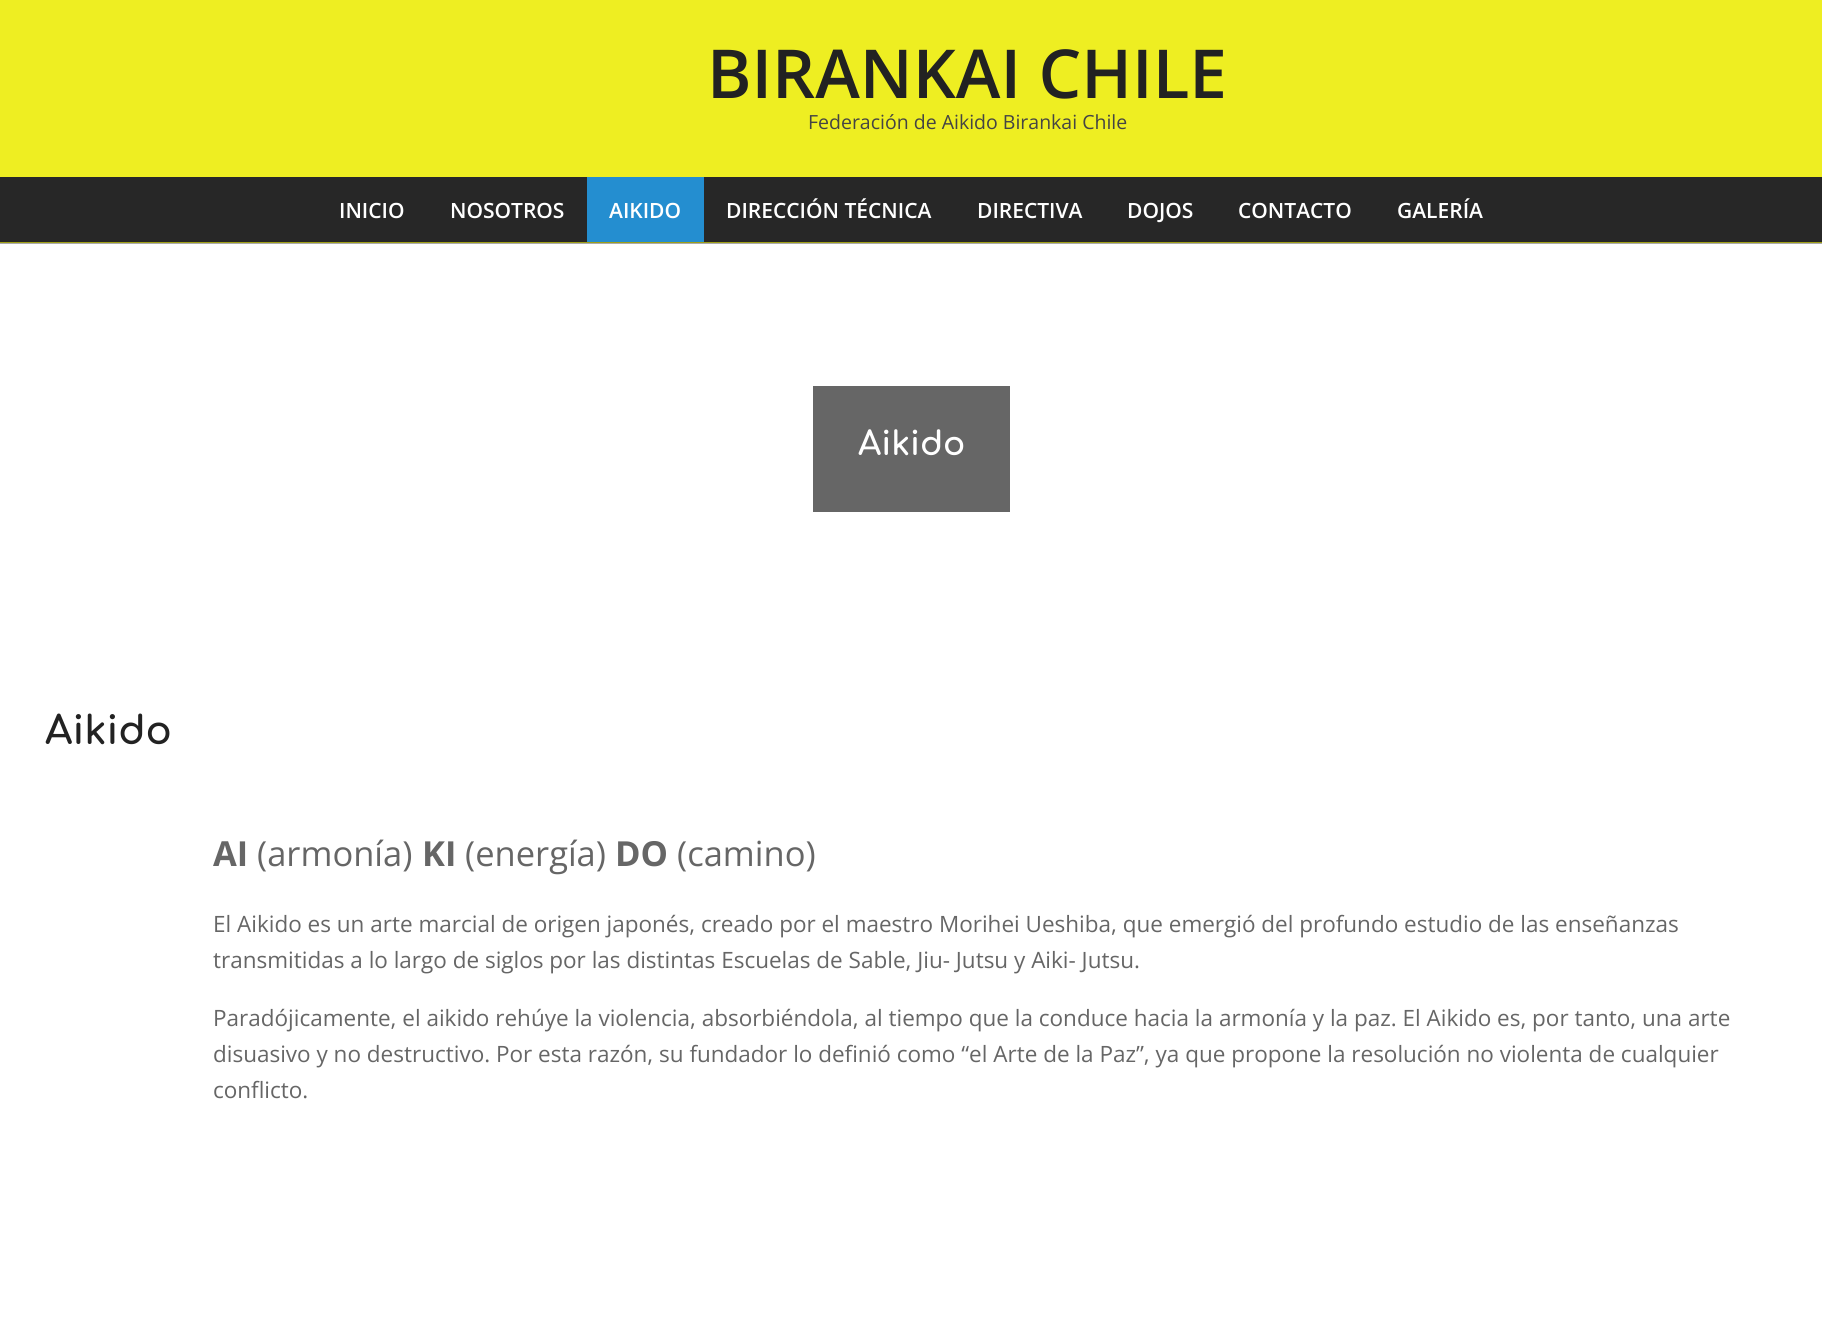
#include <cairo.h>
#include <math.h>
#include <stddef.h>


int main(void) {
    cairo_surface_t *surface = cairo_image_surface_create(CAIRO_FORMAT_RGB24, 1822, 1322);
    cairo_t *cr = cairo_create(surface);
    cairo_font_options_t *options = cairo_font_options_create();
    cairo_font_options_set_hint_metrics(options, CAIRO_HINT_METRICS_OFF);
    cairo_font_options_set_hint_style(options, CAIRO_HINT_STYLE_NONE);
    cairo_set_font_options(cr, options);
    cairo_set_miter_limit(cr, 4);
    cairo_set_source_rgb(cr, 0.933, 0.933, 0.133);
    cairo_paint(cr);
    cairo_set_source_rgb(cr, 0.624, 0.624, 0.09);
    cairo_rectangle(cr, 0, 242, 1822, 1);
    cairo_fill(cr);
    cairo_select_font_face(cr, "Open Sans SemiBold", CAIRO_FONT_SLANT_NORMAL, CAIRO_FONT_WEIGHT_NORMAL);
    cairo_set_font_size(cr, 67.5);
    cairo_set_source_rgb(cr, 0.133, 0.133, 0.133);
    cairo_move_to(cr, 707, 98);
    cairo_show_text(cr, "BIRANKAI CHILE");
    cairo_select_font_face(cr, "Open Sans", CAIRO_FONT_SLANT_NORMAL, CAIRO_FONT_WEIGHT_NORMAL);
    cairo_set_font_size(cr, 19.5);
    cairo_set_source_rgb(cr, 0.267, 0.267, 0.267);
    cairo_move_to(cr, 808, 129);
    cairo_show_text(cr, "Federación de Aikido Birankai Chile");
    cairo_set_source_rgb(cr, 0.153, 0.153, 0.153);
    cairo_rectangle(cr, 0, 177, 1822, 65);
    cairo_fill(cr);
    cairo_select_font_face(cr, "Open Sans SemiBold", CAIRO_FONT_SLANT_NORMAL, CAIRO_FONT_WEIGHT_NORMAL);
    cairo_set_font_size(cr, 21);
    cairo_set_source_rgb(cr, 1, 1, 1);
    cairo_move_to(cr, 339, 218);
    cairo_show_text(cr, "INICIO");
    cairo_move_to(cr, 450, 218);
    cairo_show_text(cr, "NOSOTROS");
    cairo_set_source_rgb(cr, 0.141, 0.557, 0.816);
    cairo_rectangle(cr, 587, 177, 117, 65);
    cairo_fill(cr);
    cairo_set_source_rgb(cr, 1, 1, 1);
    cairo_move_to(cr, 609, 218);
    cairo_show_text(cr, "AIKIDO");
    cairo_move_to(cr, 726, 218);
    cairo_show_text(cr, "DIRECCIÓN TÉCNICA");
    cairo_move_to(cr, 977, 218);
    cairo_show_text(cr, "DIRECTIVA");
    cairo_move_to(cr, 1127, 218);
    cairo_show_text(cr, "DOJOS");
    cairo_move_to(cr, 1238, 218);
    cairo_show_text(cr, "CONTACTO");
    cairo_move_to(cr, 1397, 218);
    cairo_show_text(cr, "GALERÍA");
    cairo_rectangle(cr, 0, 244, 1822, 1078);
    cairo_fill(cr);
    cairo_set_source_rgb(cr, 0.671, 0.671, 0.671);
    cairo_rectangle(cr, 0, 243, 1822, 1);
    cairo_fill(cr);
    cairo_set_source_rgb(cr, 0.4, 0.4, 0.4);
    cairo_rectangle(cr, 813, 386, 197, 126);
    cairo_fill(cr);
    cairo_select_font_face(cr, "Comfortaa", CAIRO_FONT_SLANT_NORMAL, CAIRO_FONT_WEIGHT_BOLD);
    cairo_set_font_size(cr, 33);
    cairo_set_source_rgb(cr, 1, 1, 1);
    cairo_move_to(cr, 858, 455);
    cairo_show_text(cr, "Aikido");
    cairo_set_font_size(cr, 39);
    cairo_set_source_rgb(cr, 0.133, 0.133, 0.133);
    cairo_move_to(cr, 45, 744);
    cairo_show_text(cr, "Aikido");
    cairo_select_font_face(cr, "Open Sans", CAIRO_FONT_SLANT_NORMAL, CAIRO_FONT_WEIGHT_BOLD);
    cairo_set_font_size(cr, 34.5);
    cairo_set_source_rgb(cr, 0.4, 0.4, 0.4);
    cairo_move_to(cr, 213, 866);
    cairo_show_text(cr, "AI");
    cairo_select_font_face(cr, "Open Sans", CAIRO_FONT_SLANT_NORMAL, CAIRO_FONT_WEIGHT_NORMAL);
    cairo_move_to(cr, 257, 866);
    cairo_show_text(cr, "(armonía)");
    cairo_select_font_face(cr, "Open Sans", CAIRO_FONT_SLANT_NORMAL, CAIRO_FONT_WEIGHT_BOLD);
    cairo_move_to(cr, 422, 866);
    cairo_show_text(cr, "KI");
    cairo_select_font_face(cr, "Open Sans", CAIRO_FONT_SLANT_NORMAL, CAIRO_FONT_WEIGHT_NORMAL);
    cairo_move_to(cr, 465, 866);
    cairo_show_text(cr, "(energía)");
    cairo_select_font_face(cr, "Open Sans", CAIRO_FONT_SLANT_NORMAL, CAIRO_FONT_WEIGHT_BOLD);
    cairo_move_to(cr, 615, 866);
    cairo_show_text(cr, "DO");
    cairo_select_font_face(cr, "Open Sans", CAIRO_FONT_SLANT_NORMAL, CAIRO_FONT_WEIGHT_NORMAL);
    cairo_move_to(cr, 677, 866);
    cairo_show_text(cr, "(camino)");
    cairo_set_font_size(cr, 22.5);
    cairo_move_to(cr, 213, 932);
    cairo_show_text(cr, "El Aikido es un arte marcial de origen japonés, creado por el maestro Morihei Ueshiba, que emergió del profundo estudio de las enseñanzas");
    cairo_move_to(cr, 213, 968);
    cairo_show_text(cr, "transmitidas a lo largo de siglos por las distintas Escuelas de Sable, Jiu- Jutsu y Aiki- Jutsu.");
    cairo_move_to(cr, 213, 1026);
    cairo_show_text(cr, "Paradójicamente, el aikido rehúye la violencia, absorbiéndola, al tiempo que la conduce hacia la armonía y la paz. El Aikido es, por tanto, una arte");
    cairo_move_to(cr, 213, 1062);
    cairo_show_text(cr, "disuasivo y no destructivo. Por esta razón, su fundador lo definió como “el Arte de la Paz”, ya que propone la resolución no violenta de cualquier");
    cairo_move_to(cr, 213, 1098);
    cairo_show_text(cr, "conflicto.");
    cairo_surface_write_to_png(surface, "page.png");
    cairo_font_options_destroy(options);
    cairo_destroy(cr);
    cairo_surface_destroy(surface);
    return 0;
}
